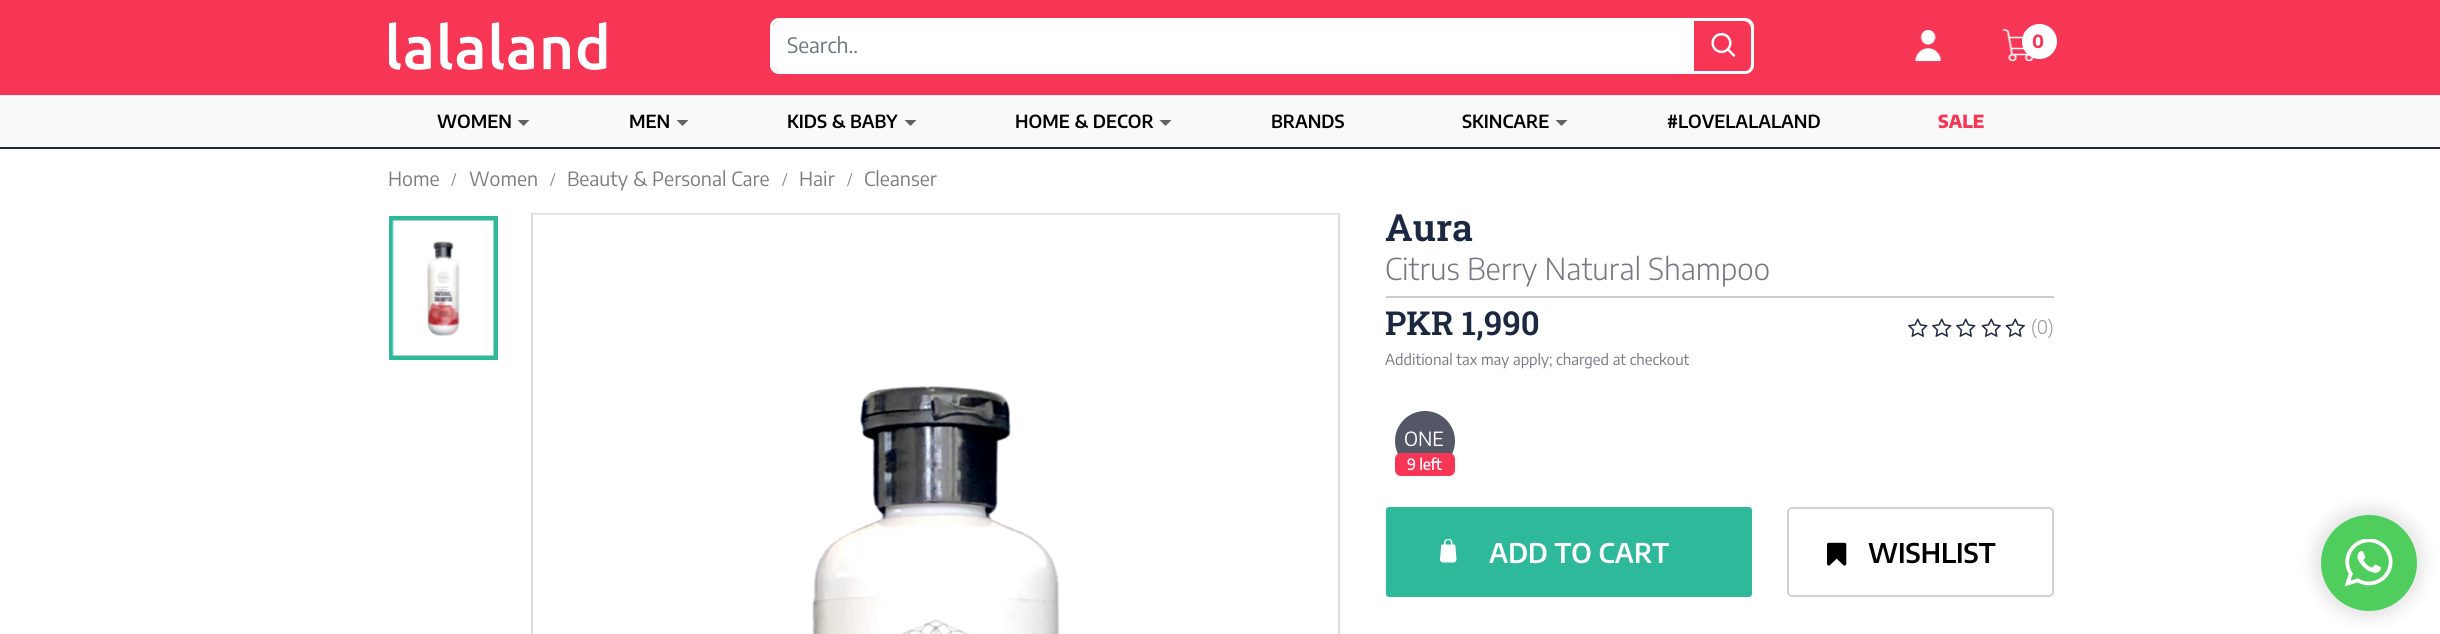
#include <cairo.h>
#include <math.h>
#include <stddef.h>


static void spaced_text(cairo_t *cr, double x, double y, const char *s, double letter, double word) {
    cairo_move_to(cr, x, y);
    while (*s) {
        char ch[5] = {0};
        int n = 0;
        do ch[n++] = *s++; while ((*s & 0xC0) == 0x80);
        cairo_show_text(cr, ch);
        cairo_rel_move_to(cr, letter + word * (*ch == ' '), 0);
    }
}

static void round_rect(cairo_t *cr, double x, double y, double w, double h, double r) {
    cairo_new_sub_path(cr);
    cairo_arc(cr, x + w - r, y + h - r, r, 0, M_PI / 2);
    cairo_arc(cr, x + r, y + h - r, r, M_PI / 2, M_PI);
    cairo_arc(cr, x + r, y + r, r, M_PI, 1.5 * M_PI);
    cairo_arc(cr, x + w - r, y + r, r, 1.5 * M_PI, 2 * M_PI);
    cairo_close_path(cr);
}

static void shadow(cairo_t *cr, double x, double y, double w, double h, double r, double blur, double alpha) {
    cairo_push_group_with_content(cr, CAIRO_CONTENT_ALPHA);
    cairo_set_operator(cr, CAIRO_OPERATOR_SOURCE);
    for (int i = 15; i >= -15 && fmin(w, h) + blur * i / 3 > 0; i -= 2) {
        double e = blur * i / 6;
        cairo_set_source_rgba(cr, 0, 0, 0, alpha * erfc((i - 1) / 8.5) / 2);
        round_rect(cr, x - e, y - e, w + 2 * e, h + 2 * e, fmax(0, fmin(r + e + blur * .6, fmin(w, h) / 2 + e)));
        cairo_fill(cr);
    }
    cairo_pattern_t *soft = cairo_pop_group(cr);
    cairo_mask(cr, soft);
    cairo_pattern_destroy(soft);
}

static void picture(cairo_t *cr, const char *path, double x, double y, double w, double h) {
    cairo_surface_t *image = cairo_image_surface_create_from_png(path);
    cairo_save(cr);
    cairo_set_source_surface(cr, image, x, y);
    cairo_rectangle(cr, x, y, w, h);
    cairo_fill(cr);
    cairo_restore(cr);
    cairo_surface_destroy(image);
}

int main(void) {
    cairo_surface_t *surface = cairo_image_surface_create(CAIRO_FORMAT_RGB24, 2440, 634);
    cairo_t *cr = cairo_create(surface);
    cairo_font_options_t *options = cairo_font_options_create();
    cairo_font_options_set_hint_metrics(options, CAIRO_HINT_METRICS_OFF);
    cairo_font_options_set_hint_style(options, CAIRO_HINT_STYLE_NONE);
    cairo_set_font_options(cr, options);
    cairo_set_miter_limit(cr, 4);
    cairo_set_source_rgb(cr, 1, 1, 1);
    cairo_paint(cr);
    cairo_set_source_rgb(cr, 0.965, 0.212, 0.333);
    cairo_rectangle(cr, 0, 0, 2440, 95);
    cairo_fill(cr);
    picture(cr, "img1.png", 389, 22, 218, 48);
    round_rect(cr, 771.5, 19.5, 981, 53, 7.5);
    cairo_set_source_rgb(cr, 1, 1, 1);
    cairo_set_line_width(cr, 3);
    cairo_stroke(cr);
    cairo_save(cr);
    round_rect(cr, 773, 21, 978, 50, 6);
    cairo_clip(cr);
    round_rect(cr, 773, 21, 978, 53, 5);
    cairo_fill(cr);
    cairo_restore(cr);
    cairo_save(cr);
    cairo_rectangle(cr, 788, 33, 948, 26);
    cairo_clip(cr);
    cairo_select_font_face(cr, "Encode Sans", CAIRO_FONT_SLANT_NORMAL, CAIRO_FONT_WEIGHT_NORMAL);
    cairo_set_font_size(cr, 21);
    cairo_set_source_rgb(cr, 0.424, 0.459, 0.49);
    cairo_move_to(cr, 787, 53);
    cairo_show_text(cr, "Search..");
    cairo_restore(cr);
    cairo_save(cr);
    round_rect(cr, 773, 21, 978, 50, 6);
    cairo_clip(cr);
    cairo_set_source_rgb(cr, 0.965, 0.212, 0.333);
    cairo_new_path(cr);
    cairo_move_to(cr, 1694, 21);
    cairo_line_to(cr, 1743, 21);
    cairo_curve_to(cr, 1747.5, 21, 1751, 24.5, 1751, 29);
    cairo_line_to(cr, 1751, 64);
    cairo_curve_to(cr, 1751, 68.5, 1747.5, 72, 1743, 72);
    cairo_line_to(cr, 1694, 72);
    cairo_close_path(cr);
    cairo_fill(cr);
    cairo_restore(cr);
    picture(cr, "img2.png", 1711, 32, 25, 25);
    picture(cr, "img3.png", 1915, 30, 26, 32);
    picture(cr, "img4.png", 2002, 28, 32, 34);
    cairo_arc(cr, 2039.5, 41.5, 17.5, 0, 2 * M_PI);
    cairo_fill(cr);
    cairo_select_font_face(cr, "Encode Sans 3", CAIRO_FONT_SLANT_NORMAL, CAIRO_FONT_WEIGHT_BOLD);
    cairo_set_font_size(cr, 18);
    cairo_set_source_rgb(cr, 0.965, 0.212, 0.333);
    spaced_text(cr, 2032, 48, "0", 2, 0);
    cairo_set_source_rgb(cr, 0.933, 0.933, 0.933);
    cairo_rectangle(cr, 0, 95, 2440, 1);
    cairo_fill(cr);
    cairo_set_source_rgb(cr, 0.973, 0.973, 0.973);
    cairo_rectangle(cr, 0, 96, 2440, 51);
    cairo_fill(cr);
    cairo_set_source_rgb(cr, 0.11, 0.157, 0.255);
    cairo_rectangle(cr, 0, 147, 2440, 2);
    cairo_fill(cr);
    cairo_select_font_face(cr, "Encode Sans SemiBold", CAIRO_FONT_SLANT_NORMAL, CAIRO_FONT_WEIGHT_NORMAL);
    cairo_set_source_rgb(cr, 0, 0, 0);
    cairo_move_to(cr, 437, 128);
    cairo_show_text(cr, "WOMEN");
    cairo_set_source_rgb(cr, 0.384, 0.384, 0.384);
    cairo_new_path(cr);
    cairo_move_to(cr, 517.5, 120);
    cairo_line_to(cr, 529.5, 120);
    cairo_line_to(cr, 523.5, 126);
    cairo_close_path(cr);
    cairo_fill(cr);
    cairo_set_source_rgb(cr, 0, 0, 0);
    cairo_move_to(cr, 629, 128);
    cairo_show_text(cr, "MEN");
    cairo_set_source_rgb(cr, 0.384, 0.384, 0.384);
    cairo_new_path(cr);
    cairo_move_to(cr, 676.5, 120);
    cairo_line_to(cr, 688.5, 120);
    cairo_line_to(cr, 682.5, 126);
    cairo_close_path(cr);
    cairo_fill(cr);
    cairo_set_source_rgb(cr, 0, 0, 0);
    cairo_move_to(cr, 787, 128);
    cairo_show_text(cr, "KIDS & BABY");
    cairo_set_source_rgb(cr, 0.384, 0.384, 0.384);
    cairo_new_path(cr);
    cairo_move_to(cr, 904.5, 120);
    cairo_line_to(cr, 916.5, 120);
    cairo_line_to(cr, 910.5, 126);
    cairo_close_path(cr);
    cairo_fill(cr);
    cairo_set_source_rgb(cr, 0, 0, 0);
    cairo_move_to(cr, 1015, 128);
    cairo_show_text(cr, "HOME & DECOR");
    cairo_set_source_rgb(cr, 0.384, 0.384, 0.384);
    cairo_new_path(cr);
    cairo_move_to(cr, 1159.5, 120);
    cairo_line_to(cr, 1171.5, 120);
    cairo_line_to(cr, 1165.5, 126);
    cairo_close_path(cr);
    cairo_fill(cr);
    cairo_set_source_rgb(cr, 0, 0, 0);
    cairo_move_to(cr, 1271, 128);
    cairo_show_text(cr, "BRANDS");
    cairo_move_to(cr, 1462, 128);
    cairo_show_text(cr, "SKINCARE");
    cairo_set_source_rgb(cr, 0.384, 0.384, 0.384);
    cairo_new_path(cr);
    cairo_move_to(cr, 1555.5, 120);
    cairo_line_to(cr, 1567.5, 120);
    cairo_line_to(cr, 1561.5, 126);
    cairo_close_path(cr);
    cairo_fill(cr);
    cairo_set_source_rgb(cr, 0, 0, 0);
    cairo_move_to(cr, 1667, 128);
    cairo_show_text(cr, "#LOVELALALAND");
    cairo_select_font_face(cr, "Encode Sans ExtraBold", CAIRO_FONT_SLANT_NORMAL, CAIRO_FONT_WEIGHT_NORMAL);
    cairo_set_source_rgb(cr, 0.965, 0.212, 0.333);
    cairo_move_to(cr, 1938, 128);
    cairo_show_text(cr, "SALE");
    cairo_select_font_face(cr, "Encode Sans", CAIRO_FONT_SLANT_NORMAL, CAIRO_FONT_WEIGHT_NORMAL);
    cairo_set_font_size(cr, 19.5);
    cairo_set_source_rgb(cr, 0.486, 0.486, 0.486);
    cairo_move_to(cr, 388, 186);
    cairo_show_text(cr, "Home");
    cairo_select_font_face(cr, "Liberation Serif", CAIRO_FONT_SLANT_NORMAL, CAIRO_FONT_WEIGHT_NORMAL);
    cairo_set_source_rgb(cr, 0.424, 0.459, 0.49);
    cairo_move_to(cr, 451, 186);
    cairo_show_text(cr, "/");
    cairo_select_font_face(cr, "Encode Sans", CAIRO_FONT_SLANT_NORMAL, CAIRO_FONT_WEIGHT_NORMAL);
    cairo_set_source_rgb(cr, 0.486, 0.486, 0.486);
    cairo_move_to(cr, 469, 186);
    cairo_show_text(cr, "Women");
    cairo_select_font_face(cr, "Liberation Serif", CAIRO_FONT_SLANT_NORMAL, CAIRO_FONT_WEIGHT_NORMAL);
    cairo_set_source_rgb(cr, 0.424, 0.459, 0.49);
    cairo_move_to(cr, 550, 186);
    cairo_show_text(cr, "/");
    cairo_select_font_face(cr, "Encode Sans", CAIRO_FONT_SLANT_NORMAL, CAIRO_FONT_WEIGHT_NORMAL);
    cairo_set_source_rgb(cr, 0.486, 0.486, 0.486);
    cairo_move_to(cr, 567, 186);
    cairo_show_text(cr, "Beauty & Personal Care");
    cairo_select_font_face(cr, "Liberation Serif", CAIRO_FONT_SLANT_NORMAL, CAIRO_FONT_WEIGHT_NORMAL);
    cairo_set_source_rgb(cr, 0.424, 0.459, 0.49);
    cairo_move_to(cr, 782, 186);
    cairo_show_text(cr, "/");
    cairo_select_font_face(cr, "Encode Sans", CAIRO_FONT_SLANT_NORMAL, CAIRO_FONT_WEIGHT_NORMAL);
    cairo_set_source_rgb(cr, 0.486, 0.486, 0.486);
    cairo_move_to(cr, 799, 186);
    cairo_show_text(cr, "Hair");
    cairo_select_font_face(cr, "Liberation Serif", CAIRO_FONT_SLANT_NORMAL, CAIRO_FONT_WEIGHT_NORMAL);
    cairo_set_source_rgb(cr, 0.424, 0.459, 0.49);
    cairo_move_to(cr, 847, 186);
    cairo_show_text(cr, "/");
    cairo_select_font_face(cr, "Encode Sans", CAIRO_FONT_SLANT_NORMAL, CAIRO_FONT_WEIGHT_NORMAL);
    cairo_set_source_rgb(cr, 0.486, 0.486, 0.486);
    cairo_move_to(cr, 864, 186);
    cairo_show_text(cr, "Cleanser");
    cairo_rectangle(cr, 391.5, 218.5, 104, 139);
    cairo_set_source_rgb(cr, 0.184, 0.725, 0.608);
    cairo_set_line_width(cr, 5);
    cairo_stroke(cr);
    picture(cr, "img5.png", 392, 220, 102, 136);
    cairo_rectangle(cr, 532, 214, 807, 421);
    cairo_set_source_rgb(cr, 0.867, 0.867, 0.867);
    cairo_set_line_width(cr, 2);
    cairo_stroke(cr);
    picture(cr, "img6.png", 533, 214, 805, 420);
    cairo_select_font_face(cr, "Roboto Slab SemiBold", CAIRO_FONT_SLANT_NORMAL, CAIRO_FONT_WEIGHT_NORMAL);
    cairo_set_font_size(cr, 37.5);
    cairo_set_source_rgb(cr, 0.11, 0.157, 0.255);
    cairo_move_to(cr, 1385, 241);
    cairo_show_text(cr, "Aura");
    cairo_set_source_rgb(cr, 0.792, 0.804, 0.827);
    cairo_rectangle(cr, 1386, 296, 668, 2);
    cairo_fill(cr);
    cairo_select_font_face(cr, "Encode Sans Light", CAIRO_FONT_SLANT_NORMAL, CAIRO_FONT_WEIGHT_NORMAL);
    cairo_set_font_size(cr, 30);
    cairo_set_source_rgb(cr, 0.459, 0.467, 0.51);
    cairo_move_to(cr, 1385, 280);
    cairo_show_text(cr, "Citrus Berry Natural Shampoo");
    cairo_select_font_face(cr, "Roboto Slab SemiBold", CAIRO_FONT_SLANT_NORMAL, CAIRO_FONT_WEIGHT_NORMAL);
    cairo_set_font_size(cr, 33);
    cairo_set_source_rgb(cr, 0.11, 0.157, 0.255);
    cairo_move_to(cr, 1385, 335);
    cairo_show_text(cr, "PKR 1,990");
    picture(cr, "img7.png", 1908, 318, 20, 19);
    picture(cr, "img7.png", 1932, 318, 20, 19);
    picture(cr, "img7.png", 1956, 318, 20, 19);
    picture(cr, "img8.png", 1981, 318, 20, 19);
    picture(cr, "img8.png", 2005, 318, 20, 19);
    cairo_select_font_face(cr, "Encode Sans", CAIRO_FONT_SLANT_NORMAL, CAIRO_FONT_WEIGHT_BOLD);
    cairo_set_font_size(cr, 18);
    cairo_set_source_rgb(cr, 0.592, 0.596, 0.627);
    cairo_move_to(cr, 2031, 334);
    cairo_show_text(cr, "(0)");
    cairo_select_font_face(cr, "Encode Sans", CAIRO_FONT_SLANT_NORMAL, CAIRO_FONT_WEIGHT_NORMAL);
    cairo_set_font_size(cr, 15);
    cairo_set_source_rgb(cr, 0.459, 0.467, 0.51);
    cairo_move_to(cr, 1385, 365);
    cairo_show_text(cr, "Additional tax may apply; charged at checkout");
    cairo_set_source_rgb(cr, 0.325, 0.341, 0.4);
    cairo_new_path(cr);
    cairo_arc(cr, 1425, 441, 29, 0, 2 * M_PI);
    cairo_fill_preserve(cr);
    cairo_stroke(cr);
    cairo_set_font_size(cr, 19.5);
    cairo_set_source_rgb(cr, 1, 1, 1);
    cairo_move_to(cr, 1404, 446);
    cairo_show_text(cr, "ONE");
    cairo_set_source_rgb(cr, 0.965, 0.212, 0.333);
    round_rect(cr, 1395, 453, 60, 23, 6);
    cairo_fill(cr);
    cairo_select_font_face(cr, "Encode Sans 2", CAIRO_FONT_SLANT_NORMAL, CAIRO_FONT_WEIGHT_BOLD);
    cairo_set_font_size(cr, 15);
    cairo_set_source_rgb(cr, 1, 1, 1);
    cairo_move_to(cr, 1407, 470);
    cairo_show_text(cr, "9 left");
    cairo_set_source_rgb(cr, 0.184, 0.725, 0.608);
    round_rect(cr, 1387, 508, 364, 88, 2);
    cairo_fill_preserve(cr);
    cairo_stroke(cr);
    picture(cr, "img9.png", 1440, 539, 17, 24);
    cairo_select_font_face(cr, "Encode Sans SemiBold", CAIRO_FONT_SLANT_NORMAL, CAIRO_FONT_WEIGHT_NORMAL);
    cairo_set_font_size(cr, 27);
    cairo_set_source_rgb(cr, 1, 1, 1);
    cairo_move_to(cr, 1489, 563);
    cairo_show_text(cr, "ADD TO CART");
    round_rect(cr, 1788, 508, 265, 88, 4);
    cairo_set_source_rgb(cr, 0.827, 0.827, 0.827);
    cairo_stroke(cr);
    picture(cr, "img10.png", 1827, 542, 20, 24);
    cairo_set_source_rgb(cr, 0, 0, 0);
    cairo_move_to(cr, 1868, 563);
    cairo_show_text(cr, "WISHLIST");
    cairo_set_source_rgb(cr, 0, 0, 0);
    shadow(cr, 2313, 507, 111, 111, 55.5, 7.5, 0.1);
    cairo_set_source_rgb(cr, 0.31, 0.808, 0.365);
    cairo_arc(cr, 2369, 563, 48, 0, 2 * M_PI);
    cairo_fill(cr);
    picture(cr, "img11.png", 2345, 539, 48, 48);
    cairo_surface_write_to_png(surface, "page.png");
    cairo_font_options_destroy(options);
    cairo_destroy(cr);
    cairo_surface_destroy(surface);
    return 0;
}
